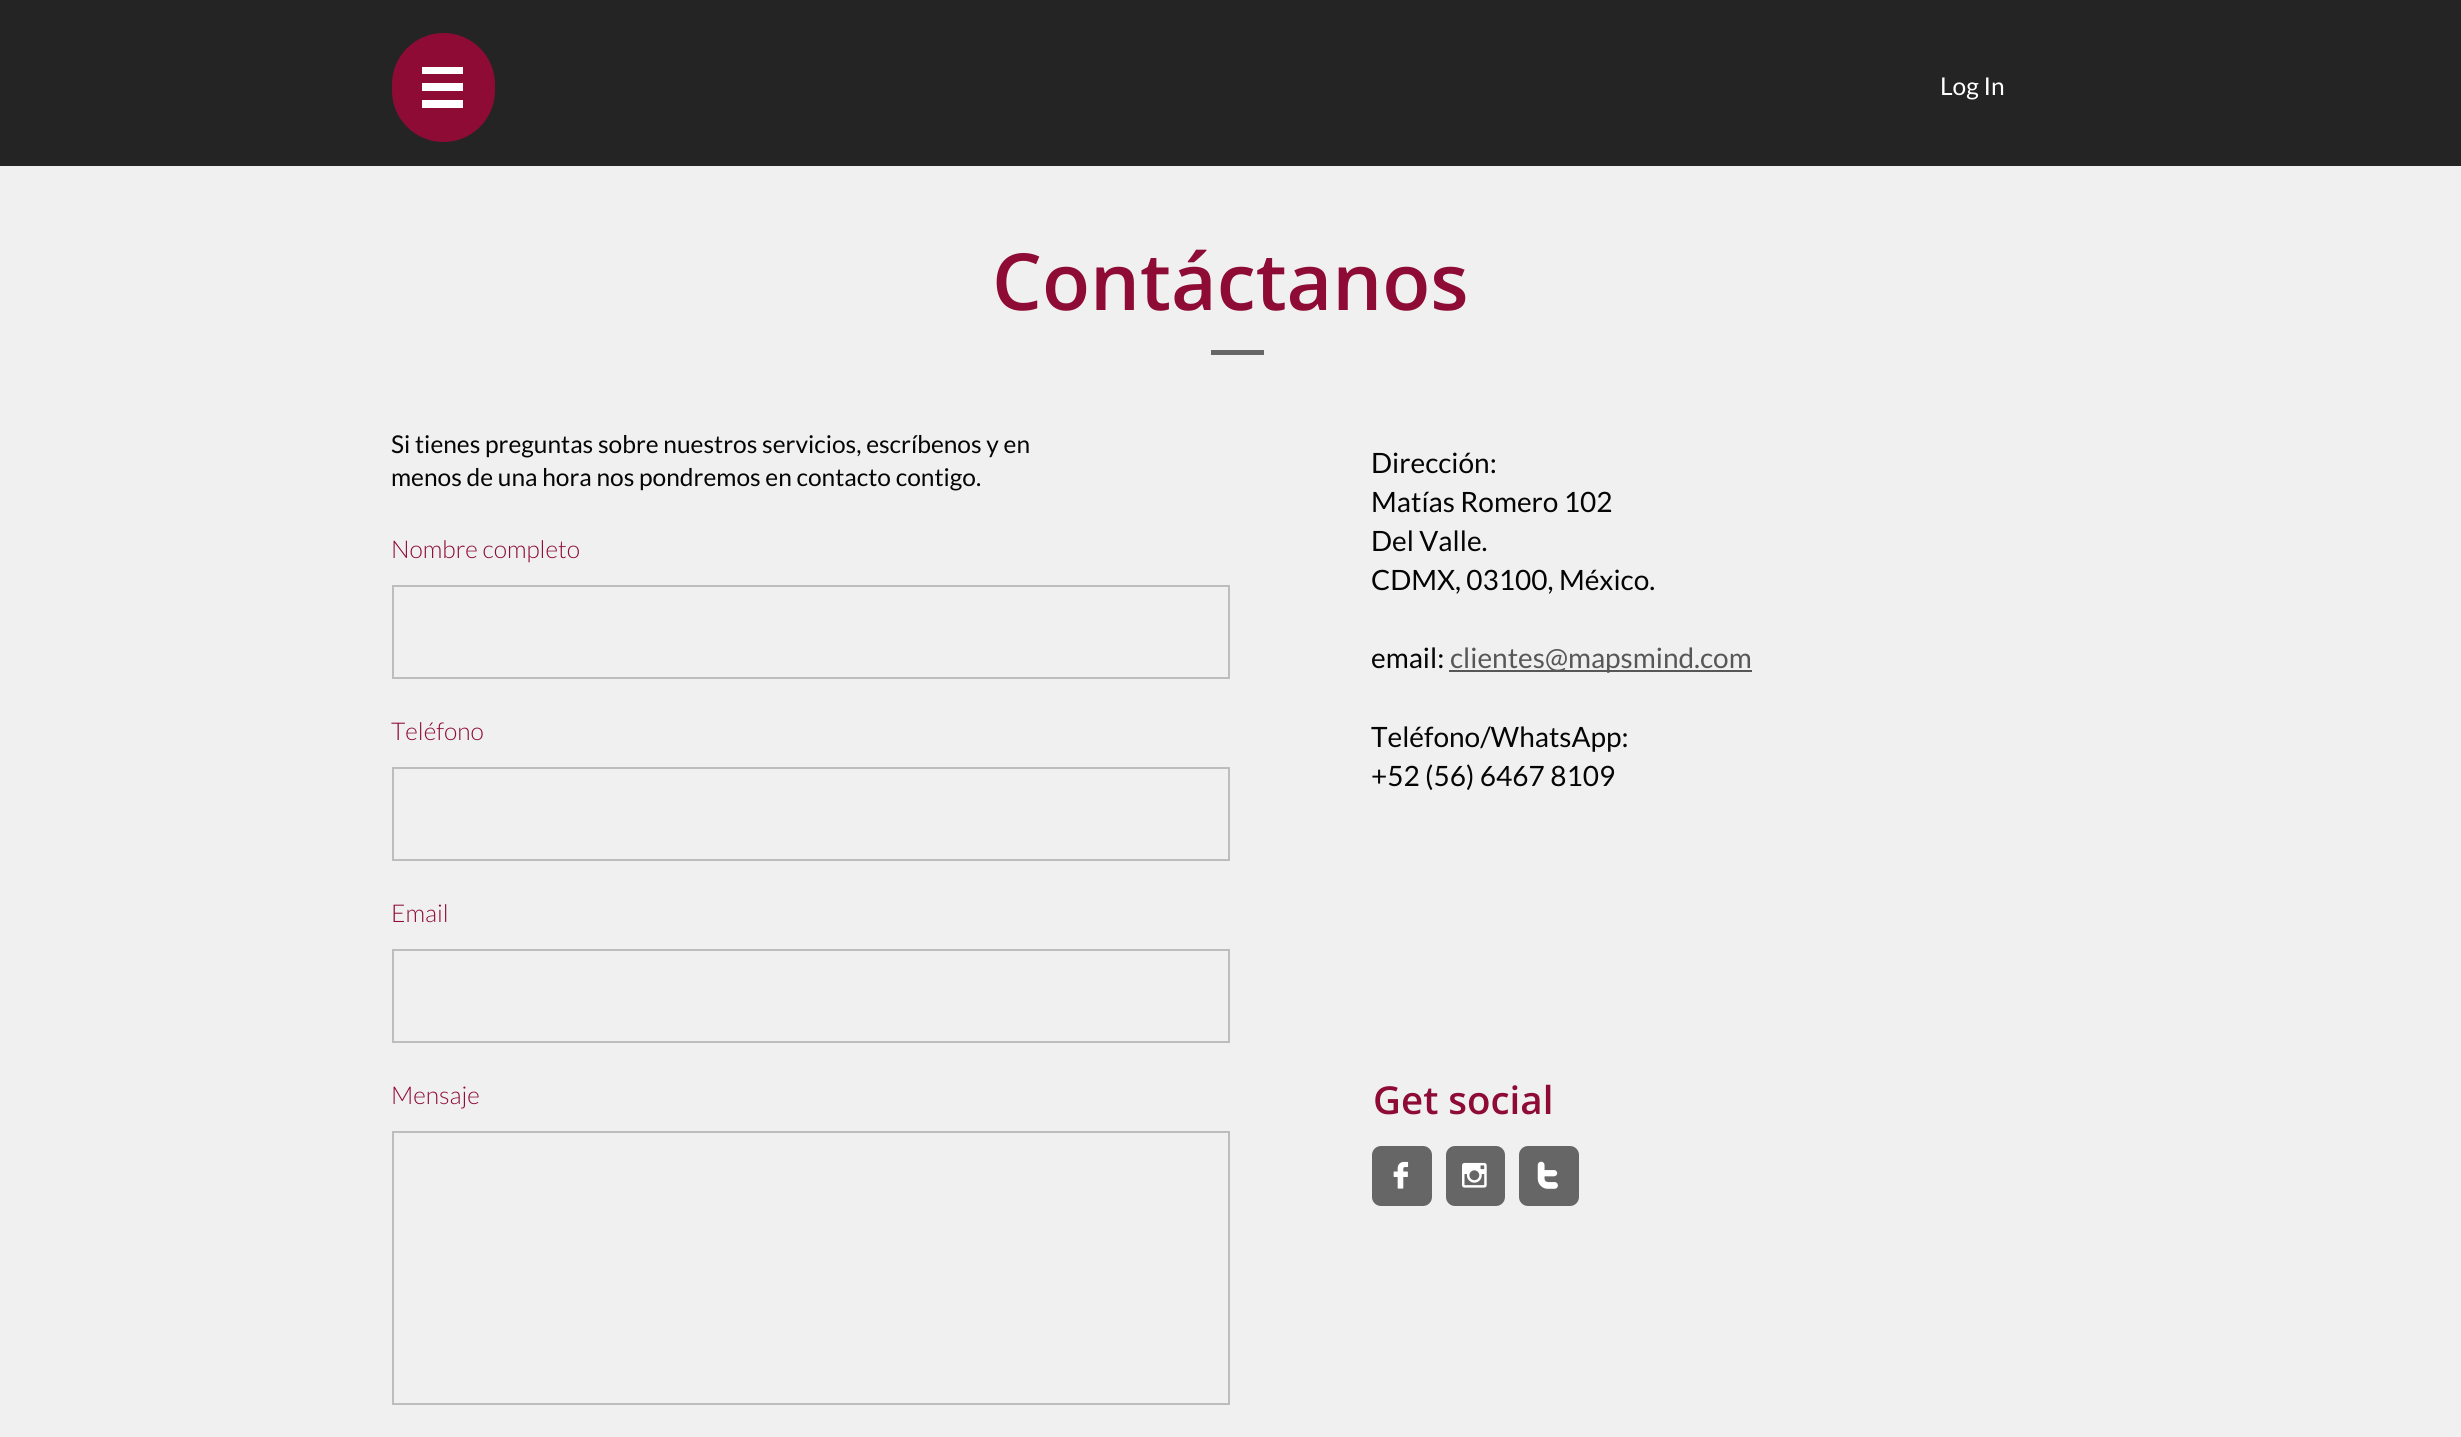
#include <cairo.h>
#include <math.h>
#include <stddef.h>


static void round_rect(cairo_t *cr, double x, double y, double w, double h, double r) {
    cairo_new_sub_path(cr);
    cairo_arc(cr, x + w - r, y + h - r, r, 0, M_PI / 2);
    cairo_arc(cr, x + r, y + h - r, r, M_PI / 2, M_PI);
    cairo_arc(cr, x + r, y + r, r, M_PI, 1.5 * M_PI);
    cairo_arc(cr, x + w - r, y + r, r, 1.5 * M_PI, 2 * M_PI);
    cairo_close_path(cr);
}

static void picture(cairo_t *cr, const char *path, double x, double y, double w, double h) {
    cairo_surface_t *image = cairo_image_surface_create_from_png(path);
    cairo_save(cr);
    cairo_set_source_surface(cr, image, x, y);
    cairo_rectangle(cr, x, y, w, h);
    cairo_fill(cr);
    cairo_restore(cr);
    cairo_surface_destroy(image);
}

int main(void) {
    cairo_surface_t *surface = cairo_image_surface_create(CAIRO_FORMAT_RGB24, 2461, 1437);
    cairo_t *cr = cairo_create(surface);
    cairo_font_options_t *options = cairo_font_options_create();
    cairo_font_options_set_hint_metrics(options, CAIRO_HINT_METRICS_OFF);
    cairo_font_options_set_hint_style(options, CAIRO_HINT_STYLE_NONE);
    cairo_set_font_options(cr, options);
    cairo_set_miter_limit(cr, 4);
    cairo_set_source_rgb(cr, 0.141, 0.141, 0.141);
    cairo_paint(cr);
    cairo_set_source_rgb(cr, 0.557, 0.043, 0.212);
    round_rect(cr, 392, 33, 103, 109, 51.5);
    cairo_fill(cr);
    cairo_set_source_rgb(cr, 1, 1, 1);
    cairo_new_path(cr);
    cairo_move_to(cr, 422, 100);
    cairo_line_to(cr, 463, 100);
    cairo_line_to(cr, 463, 108);
    cairo_line_to(cr, 422, 108);
    cairo_close_path(cr);
    cairo_move_to(cr, 422, 83);
    cairo_line_to(cr, 463, 83);
    cairo_line_to(cr, 463, 91);
    cairo_line_to(cr, 422, 91);
    cairo_close_path(cr);
    cairo_move_to(cr, 422, 67);
    cairo_line_to(cr, 463, 67);
    cairo_line_to(cr, 463, 74);
    cairo_line_to(cr, 422, 74);
    cairo_close_path(cr);
    cairo_fill(cr);
    cairo_select_font_face(cr, "Lato", CAIRO_FONT_SLANT_NORMAL, CAIRO_FONT_WEIGHT_NORMAL);
    cairo_set_font_size(cr, 24.5);
    cairo_move_to(cr, 1940, 95);
    cairo_show_text(cr, "Log In");
    cairo_set_source_rgb(cr, 0.941, 0.941, 0.941);
    cairo_rectangle(cr, 0, 166, 2461, 1271);
    cairo_fill(cr);
    cairo_select_font_face(cr, "Open Sans SemiBold", CAIRO_FONT_SLANT_NORMAL, CAIRO_FONT_WEIGHT_NORMAL);
    cairo_set_font_size(cr, 78.75);
    cairo_set_source_rgb(cr, 0.557, 0.043, 0.212);
    cairo_move_to(cr, 992, 310);
    cairo_show_text(cr, "Contáctanos");
    cairo_set_source_rgb(cr, 0.4, 0.4, 0.4);
    cairo_rectangle(cr, 1211, 350, 53, 5);
    cairo_fill(cr);
    cairo_select_font_face(cr, "Lato", CAIRO_FONT_SLANT_NORMAL, CAIRO_FONT_WEIGHT_NORMAL);
    cairo_set_font_size(cr, 24.5);
    cairo_set_source_rgb(cr, 0.02, 0.02, 0.02);
    cairo_move_to(cr, 391, 453);
    cairo_show_text(cr, "Si tienes preguntas sobre nuestros servicios, escríbenos y en");
    cairo_move_to(cr, 391, 486);
    cairo_show_text(cr, "menos de una hora nos pondremos en contacto contigo.");
    cairo_set_font_size(cr, 28);
    cairo_move_to(cr, 1371, 473);
    cairo_show_text(cr, "Dirección:");
    cairo_move_to(cr, 1371, 512);
    cairo_show_text(cr, "Matías Romero 102");
    cairo_move_to(cr, 1371, 551);
    cairo_show_text(cr, "Del Valle.");
    cairo_move_to(cr, 1371, 590);
    cairo_show_text(cr, "CDMX, 03100, México.");
    cairo_move_to(cr, 1371, 668);
    cairo_show_text(cr, "email:");
    cairo_set_source_rgb(cr, 0.341, 0.341, 0.341);
    cairo_rectangle(cr, 1449, 670, 303, 2);
    cairo_fill(cr);
    cairo_move_to(cr, 1450, 668);
    cairo_show_text(cr, "clientes@mapsmind.com");
    cairo_set_source_rgb(cr, 0.02, 0.02, 0.02);
    cairo_move_to(cr, 1371, 747);
    cairo_show_text(cr, "Teléfono/WhatsApp:");
    cairo_move_to(cr, 1371, 786);
    cairo_show_text(cr, "+52 (56) 6467 8109");
    cairo_select_font_face(cr, "Lato Light", CAIRO_FONT_SLANT_NORMAL, CAIRO_FONT_WEIGHT_NORMAL);
    cairo_set_font_size(cr, 24.5);
    cairo_set_source_rgb(cr, 0.557, 0.043, 0.212);
    cairo_move_to(cr, 391, 558);
    cairo_show_text(cr, "Nombre completo");
    cairo_rectangle(cr, 393, 586, 836, 92);
    cairo_set_source_rgb(cr, 0.741, 0.741, 0.741);
    cairo_stroke(cr);
    cairo_set_source_rgb(cr, 0.557, 0.043, 0.212);
    cairo_move_to(cr, 391, 740);
    cairo_show_text(cr, "Teléfono");
    cairo_rectangle(cr, 393, 768, 836, 92);
    cairo_set_source_rgb(cr, 0.741, 0.741, 0.741);
    cairo_stroke(cr);
    cairo_set_source_rgb(cr, 0.557, 0.043, 0.212);
    cairo_move_to(cr, 391, 922);
    cairo_show_text(cr, "Email");
    cairo_rectangle(cr, 393, 950, 836, 92);
    cairo_set_source_rgb(cr, 0.741, 0.741, 0.741);
    cairo_stroke(cr);
    cairo_set_source_rgb(cr, 0.557, 0.043, 0.212);
    cairo_move_to(cr, 391, 1104);
    cairo_show_text(cr, "Mensaje");
    cairo_rectangle(cr, 393, 1132, 836, 272);
    cairo_set_source_rgb(cr, 0.741, 0.741, 0.741);
    cairo_stroke(cr);
    cairo_select_font_face(cr, "Open Sans SemiBold", CAIRO_FONT_SLANT_NORMAL, CAIRO_FONT_WEIGHT_NORMAL);
    cairo_set_font_size(cr, 38.5);
    cairo_set_source_rgb(cr, 0.557, 0.043, 0.212);
    cairo_move_to(cr, 1373, 1114);
    cairo_show_text(cr, "Get social");
    cairo_set_source_rgb(cr, 0.4, 0.4, 0.4);
    round_rect(cr, 1372, 1146, 60, 60, 9);
    cairo_fill(cr);
    picture(cr, "img1.png", 1393, 1161, 16, 28);
    round_rect(cr, 1446, 1146, 59, 60, 9);
    cairo_fill(cr);
    picture(cr, "img2.png", 1462, 1162, 25, 26);
    round_rect(cr, 1519, 1146, 60, 60, 9);
    cairo_fill(cr);
    picture(cr, "img3.png", 1537, 1161, 21, 28);
    cairo_surface_write_to_png(surface, "page.png");
    cairo_font_options_destroy(options);
    cairo_destroy(cr);
    cairo_surface_destroy(surface);
    return 0;
}
